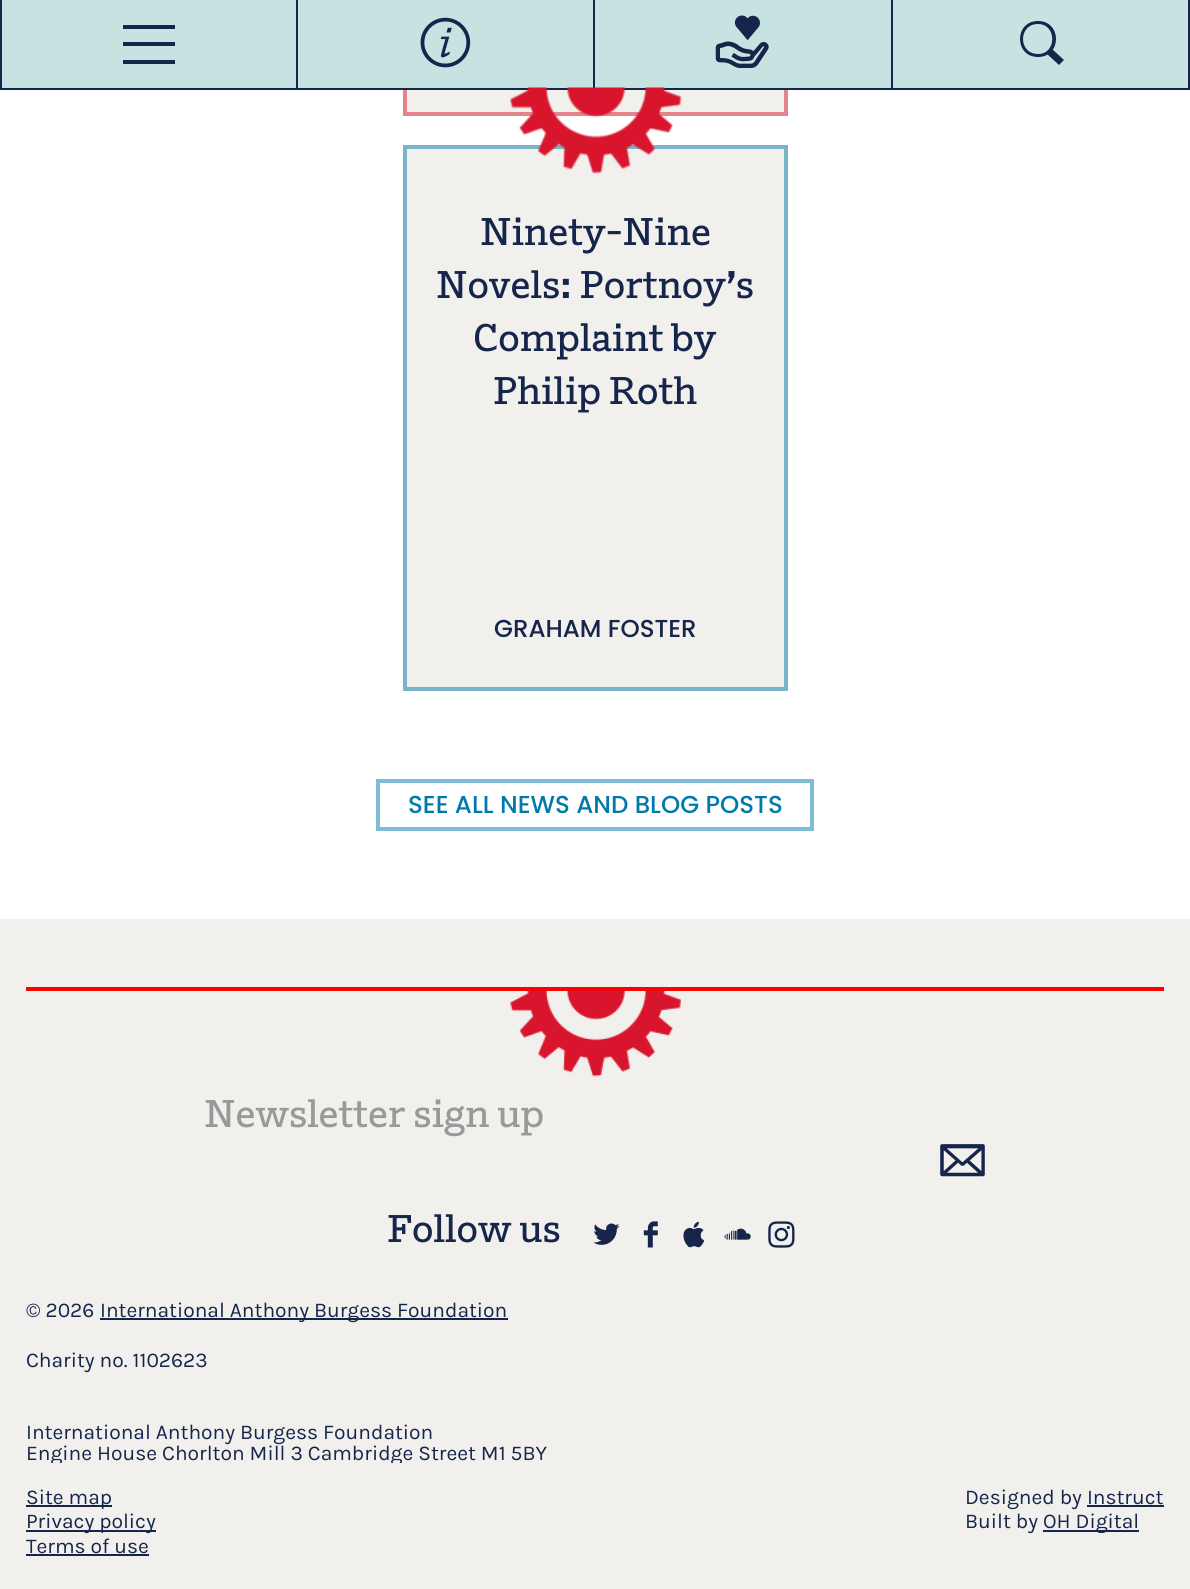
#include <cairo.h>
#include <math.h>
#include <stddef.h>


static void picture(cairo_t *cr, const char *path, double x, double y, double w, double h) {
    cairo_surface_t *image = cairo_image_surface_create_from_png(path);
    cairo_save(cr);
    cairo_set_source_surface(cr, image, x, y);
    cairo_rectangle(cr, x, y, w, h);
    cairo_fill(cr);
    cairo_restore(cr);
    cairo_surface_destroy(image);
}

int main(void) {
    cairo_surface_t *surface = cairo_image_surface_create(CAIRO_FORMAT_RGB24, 1190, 1589);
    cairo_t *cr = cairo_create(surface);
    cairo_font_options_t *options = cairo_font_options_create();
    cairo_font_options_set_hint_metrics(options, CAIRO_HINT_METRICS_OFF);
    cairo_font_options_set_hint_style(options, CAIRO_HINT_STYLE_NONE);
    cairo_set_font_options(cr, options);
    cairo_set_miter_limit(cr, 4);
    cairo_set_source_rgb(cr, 1, 1, 1);
    cairo_paint(cr);
    cairo_set_source_rgb(cr, 0.945, 0.941, 0.922);
    cairo_rectangle(cr, 407, 90, 377, 22);
    cairo_fill(cr);
    cairo_rectangle(cr, 405, -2, 381, 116);
    cairo_set_source_rgb(cr, 0.894, 0.518, 0.541);
    cairo_set_line_width(cr, 4);
    cairo_stroke(cr);
    cairo_set_source_rgb(cr, 0.78, 0.89, 0.882);
    cairo_rectangle(cr, 2, 0, 1186, 88);
    cairo_fill(cr);
    cairo_set_source_rgb(cr, 0.086, 0.145, 0.298);
    cairo_rectangle(cr, 0, 88, 1190, 2);
    cairo_fill(cr);
    cairo_rectangle(cr, 296, 0, 2, 88);
    cairo_fill(cr);
    cairo_rectangle(cr, 0, 0, 2, 88);
    cairo_fill(cr);
    cairo_rectangle(cr, 123, 25, 52, 4);
    cairo_fill(cr);
    cairo_rectangle(cr, 123, 42, 52, 4);
    cairo_fill(cr);
    cairo_rectangle(cr, 123, 60, 52, 4);
    cairo_fill(cr);
    cairo_rectangle(cr, 593, 0, 2, 88);
    cairo_fill(cr);
    picture(cr, "img1.png", 420, 17, 51, 51);
    cairo_rectangle(cr, 891, 0, 2, 88);
    cairo_fill(cr);
    picture(cr, "img2.png", 715, 15, 54, 53);
    cairo_rectangle(cr, 1188, 0, 2, 88);
    cairo_fill(cr);
    cairo_new_path(cr);
    cairo_move_to(cr, 1038, 57);
    cairo_curve_to(cr, 1014, 57, 1014, 21, 1038, 21);
    cairo_curve_to(cr, 1062, 21, 1062, 57, 1038, 57);
    cairo_close_path(cr);
    cairo_move_to(cr, 1038, 24);
    cairo_curve_to(cr, 1018, 24, 1018, 54, 1038, 54);
    cairo_curve_to(cr, 1057, 54, 1057, 24, 1038, 24);
    cairo_close_path(cr);
    cairo_move_to(cr, 1052, 49);
    cairo_line_to(cr, 1064, 60);
    cairo_line_to(cr, 1059, 65);
    cairo_line_to(cr, 1047, 54);
    cairo_close_path(cr);
    cairo_fill(cr);
    cairo_set_source_rgb(cr, 0.945, 0.941, 0.922);
    cairo_rectangle(cr, 405, 147, 381, 542);
    cairo_fill_preserve(cr);
    cairo_set_source_rgb(cr, 0.471, 0.71, 0.796);
    cairo_stroke(cr);
    picture(cr, "img3.png", 510, 87, 172, 87);
    cairo_select_font_face(cr, "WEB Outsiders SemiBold", CAIRO_FONT_SLANT_NORMAL, CAIRO_FONT_WEIGHT_NORMAL);
    cairo_set_font_size(cr, 38.5);
    cairo_set_source_rgb(cr, 0.086, 0.145, 0.298);
    cairo_move_to(cr, 480, 245);
    cairo_show_text(cr, "Ninety-Nine");
    cairo_move_to(cr, 436, 298);
    cairo_show_text(cr, "Novels: Portnoy’s");
    cairo_move_to(cr, 473, 351);
    cairo_show_text(cr, "Complaint by");
    cairo_move_to(cr, 493, 404);
    cairo_show_text(cr, "Philip Roth");
    cairo_select_font_face(cr, "Poppins Medium", CAIRO_FONT_SLANT_NORMAL, CAIRO_FONT_WEIGHT_NORMAL);
    cairo_set_font_size(cr, 24.5);
    cairo_move_to(cr, 494, 637);
    cairo_show_text(cr, "GRAHAM FOSTER");
    cairo_rectangle(cr, 378, 781, 434, 48);
    cairo_set_source_rgb(cr, 0.498, 0.737, 0.835);
    cairo_stroke(cr);
    cairo_set_source_rgb(cr, 0, 0.478, 0.671);
    cairo_move_to(cr, 408, 813);
    cairo_show_text(cr, "SEE ALL NEWS AND BLOG POSTS");
    cairo_set_source_rgb(cr, 0.945, 0.941, 0.922);
    cairo_rectangle(cr, 0, 919, 1190, 670);
    cairo_fill(cr);
    cairo_set_source_rgb(cr, 1, 0, 0);
    cairo_rectangle(cr, 26, 987, 1138, 4);
    cairo_fill(cr);
    picture(cr, "img4.png", 510, 990, 171, 87);
    cairo_select_font_face(cr, "WEB Outsiders SemiBold", CAIRO_FONT_SLANT_NORMAL, CAIRO_FONT_WEIGHT_NORMAL);
    cairo_set_font_size(cr, 38.5);
    cairo_set_source_rgb(cr, 0.6, 0.6, 0.6);
    cairo_move_to(cr, 204, 1127);
    cairo_show_text(cr, "Newsletter sign up");
    picture(cr, "img5.png", 940, 1144, 45, 33);
    cairo_set_source_rgb(cr, 0.086, 0.145, 0.298);
    cairo_move_to(cr, 387, 1242);
    cairo_show_text(cr, "Follow us");
    picture(cr, "img6.png", 593, 1223, 27, 22);
    picture(cr, "img7.png", 643, 1221, 15, 27);
    picture(cr, "img8.png", 683, 1221, 22, 27);
    picture(cr, "img9.png", 724, 1228, 27, 12);
    picture(cr, "img10.png", 768, 1221, 27, 27);
    cairo_select_font_face(cr, "Karla", CAIRO_FONT_SLANT_NORMAL, CAIRO_FONT_WEIGHT_NORMAL);
    cairo_set_font_size(cr, 21);
    cairo_move_to(cr, 26, 1317);
    cairo_show_text(cr, "© 2026");
    cairo_rectangle(cr, 100, 1318, 408, 2);
    cairo_fill(cr);
    cairo_move_to(cr, 100, 1317);
    cairo_show_text(cr, "International Anthony Burgess Foundation");
    cairo_move_to(cr, 26, 1367);
    cairo_show_text(cr, "Charity no. 1102623");
    cairo_move_to(cr, 26, 1439);
    cairo_show_text(cr, "International Anthony Burgess Foundation");
    cairo_save(cr);
    cairo_rectangle(cr, 26, 1421, 1138, 42);
    cairo_clip(cr);
    cairo_move_to(cr, 26, 1460);
    cairo_show_text(cr, "Engine House Chorlton Mill 3 Cambridge Street M1 5BY");
    cairo_restore(cr);
    cairo_rectangle(cr, 26, 1505, 86, 2);
    cairo_fill(cr);
    cairo_move_to(cr, 26, 1504);
    cairo_show_text(cr, "Site map");
    cairo_rectangle(cr, 26, 1530, 130, 2);
    cairo_fill(cr);
    cairo_move_to(cr, 26, 1528);
    cairo_show_text(cr, "Privacy policy");
    cairo_move_to(cr, 26, 1553);
    cairo_show_text(cr, "Terms of use");
    cairo_rectangle(cr, 26, 1554, 123, 2);
    cairo_fill(cr);
    cairo_move_to(cr, 965, 1504);
    cairo_show_text(cr, "Designed by Instruct");
    cairo_rectangle(cr, 1087, 1505, 77, 2);
    cairo_fill(cr);
    cairo_move_to(cr, 965, 1528);
    cairo_show_text(cr, "Built by");
    cairo_rectangle(cr, 1043, 1530, 96, 2);
    cairo_fill(cr);
    cairo_save(cr);
    cairo_rectangle(cr, 595, 1484, 569, 49);
    cairo_clip(cr);
    cairo_move_to(cr, 1043, 1528);
    cairo_show_text(cr, "OH Digital");
    cairo_restore(cr);
    cairo_surface_write_to_png(surface, "page.png");
    cairo_font_options_destroy(options);
    cairo_destroy(cr);
    cairo_surface_destroy(surface);
    return 0;
}
